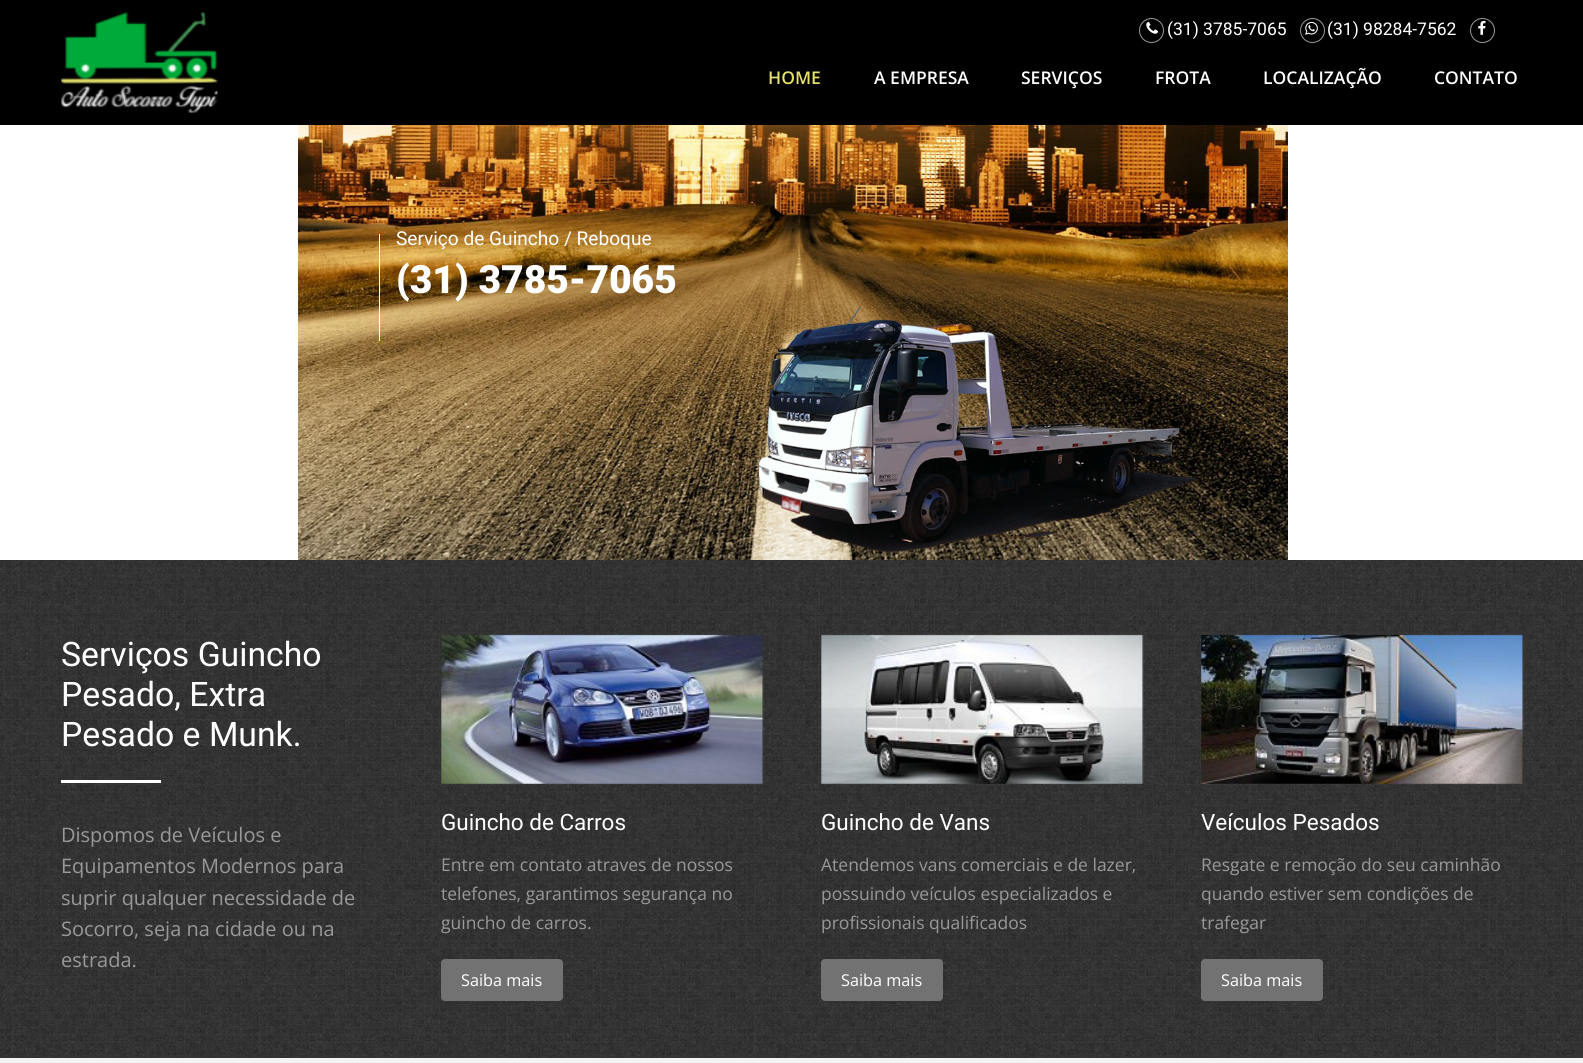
#include <cairo.h>
#include <math.h>
#include <stddef.h>


static void round_rect(cairo_t *cr, double x, double y, double w, double h, double r) {
    cairo_new_sub_path(cr);
    cairo_arc(cr, x + w - r, y + h - r, r, 0, M_PI / 2);
    cairo_arc(cr, x + r, y + h - r, r, M_PI / 2, M_PI);
    cairo_arc(cr, x + r, y + r, r, M_PI, 1.5 * M_PI);
    cairo_arc(cr, x + w - r, y + r, r, 1.5 * M_PI, 2 * M_PI);
    cairo_close_path(cr);
}

static void picture(cairo_t *cr, const char *path, double x, double y, double w, double h) {
    cairo_surface_t *image = cairo_image_surface_create_from_png(path);
    cairo_save(cr);
    cairo_set_source_surface(cr, image, x, y);
    cairo_rectangle(cr, x, y, w, h);
    cairo_fill(cr);
    cairo_restore(cr);
    cairo_surface_destroy(image);
}

int main(void) {
    cairo_surface_t *surface = cairo_image_surface_create(CAIRO_FORMAT_RGB24, 1583, 1063);
    cairo_t *cr = cairo_create(surface);
    cairo_font_options_t *options = cairo_font_options_create();
    cairo_font_options_set_hint_metrics(options, CAIRO_HINT_METRICS_OFF);
    cairo_font_options_set_hint_style(options, CAIRO_HINT_STYLE_NONE);
    cairo_set_font_options(cr, options);
    cairo_set_miter_limit(cr, 4);
    cairo_set_source_rgb(cr, 1, 1, 1);
    cairo_paint(cr);
    cairo_set_source_rgb(cr, 0, 0, 0);
    cairo_rectangle(cr, 0, 0, 1583, 125);
    cairo_fill(cr);
    picture(cr, "img1.png", 61, 12, 157, 101);
    cairo_arc(cr, 1151.5, 30.5, 12, 0, 2 * M_PI);
    cairo_set_source_rgb(cr, 0.6, 0.6, 0.6);
    cairo_set_line_width(cr, 1);
    cairo_stroke(cr);
    picture(cr, "img2.png", 1146, 22, 12, 12);
    cairo_select_font_face(cr, "Roboto", CAIRO_FONT_SLANT_NORMAL, CAIRO_FONT_WEIGHT_NORMAL);
    cairo_set_font_size(cr, 17.5);
    cairo_set_source_rgb(cr, 1, 1, 1);
    cairo_move_to(cr, 1167, 35);
    cairo_show_text(cr, "(31) 3785-7065");
    cairo_new_path(cr);
    cairo_arc(cr, 1312.5, 30.5, 12, 0, 2 * M_PI);
    cairo_set_source_rgb(cr, 0.6, 0.6, 0.6);
    cairo_stroke(cr);
    picture(cr, "img3.png", 1305, 21, 13, 14);
    cairo_set_source_rgb(cr, 1, 1, 1);
    cairo_move_to(cr, 1327, 35);
    cairo_show_text(cr, "(31) 98284-7562");
    cairo_new_path(cr);
    cairo_arc(cr, 1482.5, 30.5, 12, 0, 2 * M_PI);
    cairo_set_source_rgb(cr, 0.6, 0.6, 0.6);
    cairo_stroke(cr);
    picture(cr, "img4.png", 1478, 20, 8, 15);
    cairo_select_font_face(cr, "Open Sans SemiBold", CAIRO_FONT_SLANT_NORMAL, CAIRO_FONT_WEIGHT_NORMAL);
    cairo_set_source_rgb(cr, 0.89, 0.878, 0.427);
    cairo_move_to(cr, 768, 84);
    cairo_show_text(cr, "HOME");
    cairo_set_source_rgb(cr, 1, 1, 1);
    cairo_move_to(cr, 874, 84);
    cairo_show_text(cr, "A EMPRESA");
    cairo_move_to(cr, 1021, 84);
    cairo_show_text(cr, "SERVIÇOS");
    cairo_move_to(cr, 1155, 84);
    cairo_show_text(cr, "FROTA");
    cairo_move_to(cr, 1263, 84);
    cairo_show_text(cr, "LOCALIZAÇÃO");
    cairo_move_to(cr, 1434, 84);
    cairo_show_text(cr, "CONTATO");
    picture(cr, "img5.png", 298, 125, 990, 435);
    cairo_rectangle(cr, 379, 234, 1, 107);
    cairo_fill(cr);
    cairo_select_font_face(cr, "Roboto", CAIRO_FONT_SLANT_NORMAL, CAIRO_FONT_WEIGHT_NORMAL);
    cairo_set_font_size(cr, 19.1);
    cairo_move_to(cr, 396, 245);
    cairo_show_text(cr, "Serviço de Guincho / Reboque");
    cairo_select_font_face(cr, "Roboto Black", CAIRO_FONT_SLANT_NORMAL, CAIRO_FONT_WEIGHT_NORMAL);
    cairo_set_font_size(cr, 39);
    cairo_move_to(cr, 396, 293);
    cairo_show_text(cr, "(31) 3785-7065");
    picture(cr, "img6.png", 758, 306, 445, 247);
    cairo_set_source_rgb(cr, 0.224, 0.224, 0.224);
    cairo_rectangle(cr, 0, 1057, 1583, 1);
    cairo_fill(cr);
    picture(cr, "img7.png", 0, 560, 1583, 498);
    cairo_select_font_face(cr, "Roboto", CAIRO_FONT_SLANT_NORMAL, CAIRO_FONT_WEIGHT_NORMAL);
    cairo_set_font_size(cr, 33.75);
    cairo_set_source_rgb(cr, 1, 1, 1);
    cairo_move_to(cr, 61, 666);
    cairo_show_text(cr, "Serviços Guincho");
    cairo_move_to(cr, 61, 706);
    cairo_show_text(cr, "Pesado, Extra");
    cairo_move_to(cr, 61, 746);
    cairo_show_text(cr, "Pesado e Munk.");
    cairo_rectangle(cr, 61, 780, 100, 3);
    cairo_fill(cr);
    cairo_select_font_face(cr, "Open Sans", CAIRO_FONT_SLANT_NORMAL, CAIRO_FONT_WEIGHT_NORMAL);
    cairo_set_font_size(cr, 20);
    cairo_set_source_rgb(cr, 0.6, 0.6, 0.6);
    cairo_move_to(cr, 61, 842);
    cairo_show_text(cr, "Dispomos de Veículos e");
    cairo_move_to(cr, 61, 873);
    cairo_show_text(cr, "Equipamentos Modernos para");
    cairo_move_to(cr, 61, 905);
    cairo_show_text(cr, "suprir qualquer necessidade de");
    cairo_move_to(cr, 61, 936);
    cairo_show_text(cr, "Socorro, seja na cidade ou na");
    cairo_move_to(cr, 61, 967);
    cairo_show_text(cr, "estrada.");
    picture(cr, "img8.png", 441, 634, 323, 150);
    cairo_select_font_face(cr, "Roboto", CAIRO_FONT_SLANT_NORMAL, CAIRO_FONT_WEIGHT_NORMAL);
    cairo_set_font_size(cr, 22.5);
    cairo_set_source_rgb(cr, 1, 1, 1);
    cairo_move_to(cr, 441, 830);
    cairo_show_text(cr, "Guincho de Carros");
    cairo_select_font_face(cr, "Open Sans", CAIRO_FONT_SLANT_NORMAL, CAIRO_FONT_WEIGHT_NORMAL);
    cairo_set_font_size(cr, 17.5);
    cairo_set_source_rgb(cr, 0.6, 0.6, 0.6);
    cairo_move_to(cr, 441, 871);
    cairo_show_text(cr, "Entre em contato atraves de nossos");
    cairo_move_to(cr, 441, 900);
    cairo_show_text(cr, "telefones, garantimos segurança no");
    cairo_move_to(cr, 441, 929);
    cairo_show_text(cr, "guincho de carros.");
    cairo_set_source_rgb(cr, 0.447, 0.447, 0.447);
    round_rect(cr, 441, 959, 122, 42, 4);
    cairo_fill(cr);
    cairo_set_font_size(cr, 16.25);
    cairo_set_source_rgb(cr, 1, 1, 1);
    cairo_move_to(cr, 461, 986);
    cairo_show_text(cr, "Saiba mais");
    picture(cr, "img9.png", 821, 634, 323, 150);
    cairo_select_font_face(cr, "Roboto", CAIRO_FONT_SLANT_NORMAL, CAIRO_FONT_WEIGHT_NORMAL);
    cairo_set_font_size(cr, 22.5);
    cairo_move_to(cr, 821, 830);
    cairo_show_text(cr, "Guincho de Vans");
    cairo_select_font_face(cr, "Open Sans", CAIRO_FONT_SLANT_NORMAL, CAIRO_FONT_WEIGHT_NORMAL);
    cairo_set_font_size(cr, 17.5);
    cairo_set_source_rgb(cr, 0.6, 0.6, 0.6);
    cairo_move_to(cr, 821, 871);
    cairo_show_text(cr, "Atendemos vans comerciais e de lazer,");
    cairo_move_to(cr, 821, 900);
    cairo_show_text(cr, "possuindo veículos especializados e");
    cairo_move_to(cr, 821, 929);
    cairo_show_text(cr, "profissionais qualificados");
    cairo_set_source_rgb(cr, 0.447, 0.447, 0.447);
    round_rect(cr, 821, 959, 122, 42, 4);
    cairo_fill(cr);
    cairo_set_font_size(cr, 16.25);
    cairo_set_source_rgb(cr, 1, 1, 1);
    cairo_move_to(cr, 841, 986);
    cairo_show_text(cr, "Saiba mais");
    picture(cr, "img10.png", 1201, 634, 323, 150);
    cairo_select_font_face(cr, "Roboto", CAIRO_FONT_SLANT_NORMAL, CAIRO_FONT_WEIGHT_NORMAL);
    cairo_set_font_size(cr, 22.5);
    cairo_move_to(cr, 1201, 830);
    cairo_show_text(cr, "Veículos Pesados");
    cairo_select_font_face(cr, "Open Sans", CAIRO_FONT_SLANT_NORMAL, CAIRO_FONT_WEIGHT_NORMAL);
    cairo_set_font_size(cr, 17.5);
    cairo_set_source_rgb(cr, 0.6, 0.6, 0.6);
    cairo_move_to(cr, 1201, 871);
    cairo_show_text(cr, "Resgate e remoção do seu caminhão");
    cairo_move_to(cr, 1201, 900);
    cairo_show_text(cr, "quando estiver sem condições de");
    cairo_move_to(cr, 1201, 929);
    cairo_show_text(cr, "trafegar");
    cairo_set_source_rgb(cr, 0.447, 0.447, 0.447);
    round_rect(cr, 1201, 959, 122, 42, 4);
    cairo_fill(cr);
    cairo_set_font_size(cr, 16.25);
    cairo_set_source_rgb(cr, 1, 1, 1);
    cairo_move_to(cr, 1221, 986);
    cairo_show_text(cr, "Saiba mais");
    cairo_set_source_rgb(cr, 0.953, 0.953, 0.953);
    cairo_rectangle(cr, 0, 1058, 1583, 5);
    cairo_fill(cr);
    cairo_surface_write_to_png(surface, "page.png");
    cairo_font_options_destroy(options);
    cairo_destroy(cr);
    cairo_surface_destroy(surface);
    return 0;
}
